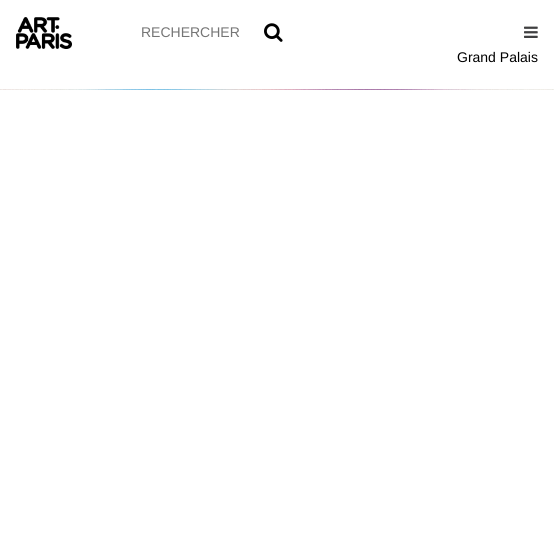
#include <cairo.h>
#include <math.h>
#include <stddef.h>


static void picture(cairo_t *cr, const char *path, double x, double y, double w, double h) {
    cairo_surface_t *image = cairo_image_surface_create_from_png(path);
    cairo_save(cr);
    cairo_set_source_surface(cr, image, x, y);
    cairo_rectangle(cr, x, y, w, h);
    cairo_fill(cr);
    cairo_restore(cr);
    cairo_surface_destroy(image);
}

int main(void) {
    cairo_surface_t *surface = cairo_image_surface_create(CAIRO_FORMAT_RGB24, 554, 555);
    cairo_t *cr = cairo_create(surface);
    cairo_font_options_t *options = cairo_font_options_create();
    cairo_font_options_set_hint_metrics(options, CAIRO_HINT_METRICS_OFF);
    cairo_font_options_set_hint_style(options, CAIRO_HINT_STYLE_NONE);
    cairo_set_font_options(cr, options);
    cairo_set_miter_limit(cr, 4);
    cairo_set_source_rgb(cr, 1, 1, 1);
    cairo_paint(cr);
    picture(cr, "img1.png", 16, 17, 56, 32);
    cairo_select_font_face(cr, "Liberation Sans", CAIRO_FONT_SLANT_NORMAL, CAIRO_FONT_WEIGHT_NORMAL);
    cairo_set_font_size(cr, 14);
    cairo_set_source_rgb(cr, 0.459, 0.459, 0.459);
    cairo_move_to(cr, 141, 37);
    cairo_show_text(cr, "RECHERCHER");
    picture(cr, "img2.png", 264, 23, 19, 19);
    picture(cr, "img3.png", 524, 26, 14, 12);
    cairo_set_source_rgb(cr, 0, 0, 0);
    cairo_move_to(cr, 457, 62);
    cairo_show_text(cr, "Grand Palais");
    picture(cr, "img4.png", 0, 89, 554, 1);
    cairo_surface_write_to_png(surface, "page.png");
    cairo_font_options_destroy(options);
    cairo_destroy(cr);
    cairo_surface_destroy(surface);
    return 0;
}
